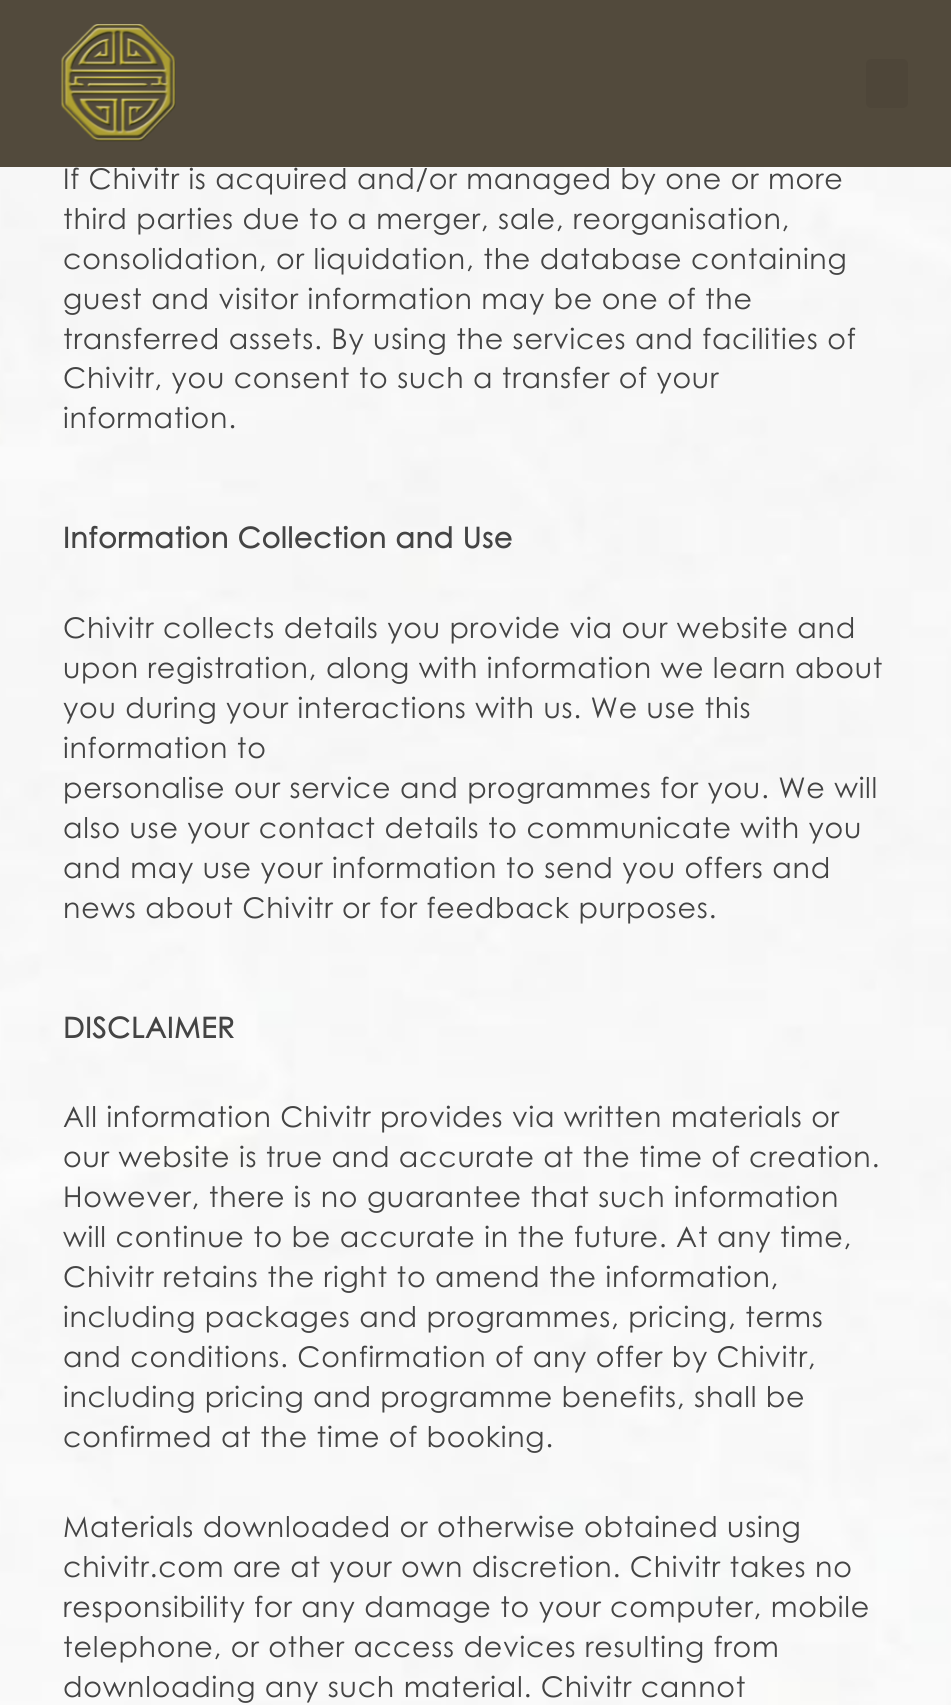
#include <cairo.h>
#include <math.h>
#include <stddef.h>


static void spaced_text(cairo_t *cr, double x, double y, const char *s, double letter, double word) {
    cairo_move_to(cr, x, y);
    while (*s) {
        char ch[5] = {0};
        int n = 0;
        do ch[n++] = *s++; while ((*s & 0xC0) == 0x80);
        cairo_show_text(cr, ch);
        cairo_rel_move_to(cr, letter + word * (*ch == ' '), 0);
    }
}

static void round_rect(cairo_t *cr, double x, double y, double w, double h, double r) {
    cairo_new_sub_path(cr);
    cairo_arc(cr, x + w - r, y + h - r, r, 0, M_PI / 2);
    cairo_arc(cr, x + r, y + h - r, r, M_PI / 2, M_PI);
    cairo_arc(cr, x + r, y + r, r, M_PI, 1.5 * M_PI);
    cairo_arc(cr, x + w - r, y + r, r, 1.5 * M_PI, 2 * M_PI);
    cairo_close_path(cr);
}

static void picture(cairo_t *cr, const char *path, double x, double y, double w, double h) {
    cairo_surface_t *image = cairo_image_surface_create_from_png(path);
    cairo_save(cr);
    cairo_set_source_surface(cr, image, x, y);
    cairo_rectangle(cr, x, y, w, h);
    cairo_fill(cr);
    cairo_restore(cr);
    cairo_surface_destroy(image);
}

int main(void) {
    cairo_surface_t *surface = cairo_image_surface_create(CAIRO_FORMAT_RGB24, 951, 1705);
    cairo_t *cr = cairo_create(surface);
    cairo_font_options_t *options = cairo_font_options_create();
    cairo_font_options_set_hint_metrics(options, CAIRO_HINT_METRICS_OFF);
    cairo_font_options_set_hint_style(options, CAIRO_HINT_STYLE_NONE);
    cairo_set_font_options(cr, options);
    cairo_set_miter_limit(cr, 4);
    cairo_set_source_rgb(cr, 1, 1, 1);
    cairo_paint(cr);
    picture(cr, "img1.png", 0, 167, 951, 1538);
    cairo_set_source_rgb(cr, 0.322, 0.29, 0.235);
    cairo_rectangle(cr, 0, 0, 951, 167);
    cairo_fill(cr);
    picture(cr, "img2.png", 61, 24, 115, 118);
    cairo_set_source_rgb(cr, 0.306, 0.275, 0.224);
    round_rect(cr, 866, 59, 42, 49, 5);
    cairo_fill(cr);
    cairo_select_font_face(cr, "Century Gothic", CAIRO_FONT_SLANT_NORMAL, CAIRO_FONT_WEIGHT_NORMAL);
    cairo_set_font_size(cr, 28.5);
    cairo_set_source_rgb(cr, 0.267, 0.267, 0.267);
    spaced_text(cr, 63, 189, "If Chivitr is acquired and/or managed by one or more", 0.75, 0);
    spaced_text(cr, 63, 229, "third parties due to a merger, sale, reorganisation,", 0.75, 0);
    spaced_text(cr, 63, 269, "consolidation, or liquidation, the database containing", 0.75, 0);
    spaced_text(cr, 63, 309, "guest and visitor information may be one of the", 0.75, 0);
    spaced_text(cr, 63, 349, "transferred assets. By using the services and facilities of", 0.75, 0);
    spaced_text(cr, 63, 388, "Chivitr, you consent to such a transfer of your", 0.75, 0);
    spaced_text(cr, 63, 428, "information.", 0.75, 0);
    cairo_select_font_face(cr, "Century Gothic", CAIRO_FONT_SLANT_NORMAL, CAIRO_FONT_WEIGHT_BOLD);
    spaced_text(cr, 63, 548, "Information Collection and Use", 0.75, 0);
    cairo_select_font_face(cr, "Century Gothic", CAIRO_FONT_SLANT_NORMAL, CAIRO_FONT_WEIGHT_NORMAL);
    spaced_text(cr, 63, 638, "Chivitr collects details you provide via our website and", 0.75, 0);
    spaced_text(cr, 63, 678, "upon registration, along with information we learn about", 0.75, 0);
    spaced_text(cr, 63, 718, "you during your interactions with us. We use this", 0.75, 0);
    spaced_text(cr, 63, 758, "information to", 0.75, 0);
    spaced_text(cr, 63, 798, "personalise our service and programmes for you. We will", 0.75, 0);
    spaced_text(cr, 63, 838, "also use your contact details to communicate with you", 0.75, 0);
    spaced_text(cr, 63, 878, "and may use your information to send you offers and", 0.75, 0);
    spaced_text(cr, 63, 918, "news about Chivitr or for feedback purposes.", 0.75, 0);
    cairo_select_font_face(cr, "Century Gothic", CAIRO_FONT_SLANT_NORMAL, CAIRO_FONT_WEIGHT_BOLD);
    spaced_text(cr, 63, 1038, "DISCLAIMER", 0.75, 0);
    cairo_select_font_face(cr, "Century Gothic", CAIRO_FONT_SLANT_NORMAL, CAIRO_FONT_WEIGHT_NORMAL);
    spaced_text(cr, 63, 1127, "All information Chivitr provides via written materials or", 0.75, 0);
    spaced_text(cr, 63, 1167, "our website is true and accurate at the time of creation.", 0.75, 0);
    spaced_text(cr, 63, 1207, "However, there is no guarantee that such information", 0.75, 0);
    spaced_text(cr, 63, 1247, "will continue to be accurate in the future. At any time,", 0.75, 0);
    spaced_text(cr, 63, 1287, "Chivitr retains the right to amend the information,", 0.75, 0);
    spaced_text(cr, 63, 1327, "including packages and programmes, pricing, terms", 0.75, 0);
    spaced_text(cr, 63, 1367, "and conditions. Confirmation of any offer by Chivitr,", 0.75, 0);
    spaced_text(cr, 63, 1407, "including pricing and programme benefits, shall be", 0.75, 0);
    spaced_text(cr, 63, 1447, "confirmed at the time of booking.", 0.75, 0);
    spaced_text(cr, 63, 1537, "Materials downloaded or otherwise obtained using", 0.75, 0);
    spaced_text(cr, 63, 1577, "chivitr.com are at your own discretion. Chivitr takes no", 0.75, 0);
    spaced_text(cr, 63, 1617, "responsibility for any damage to your computer, mobile", 0.75, 0);
    spaced_text(cr, 63, 1657, "telephone, or other access devices resulting from", 0.75, 0);
    spaced_text(cr, 63, 1697, "downloading any such material. Chivitr cannot", 0.75, 0);
    cairo_surface_write_to_png(surface, "page.png");
    cairo_font_options_destroy(options);
    cairo_destroy(cr);
    cairo_surface_destroy(surface);
    return 0;
}
